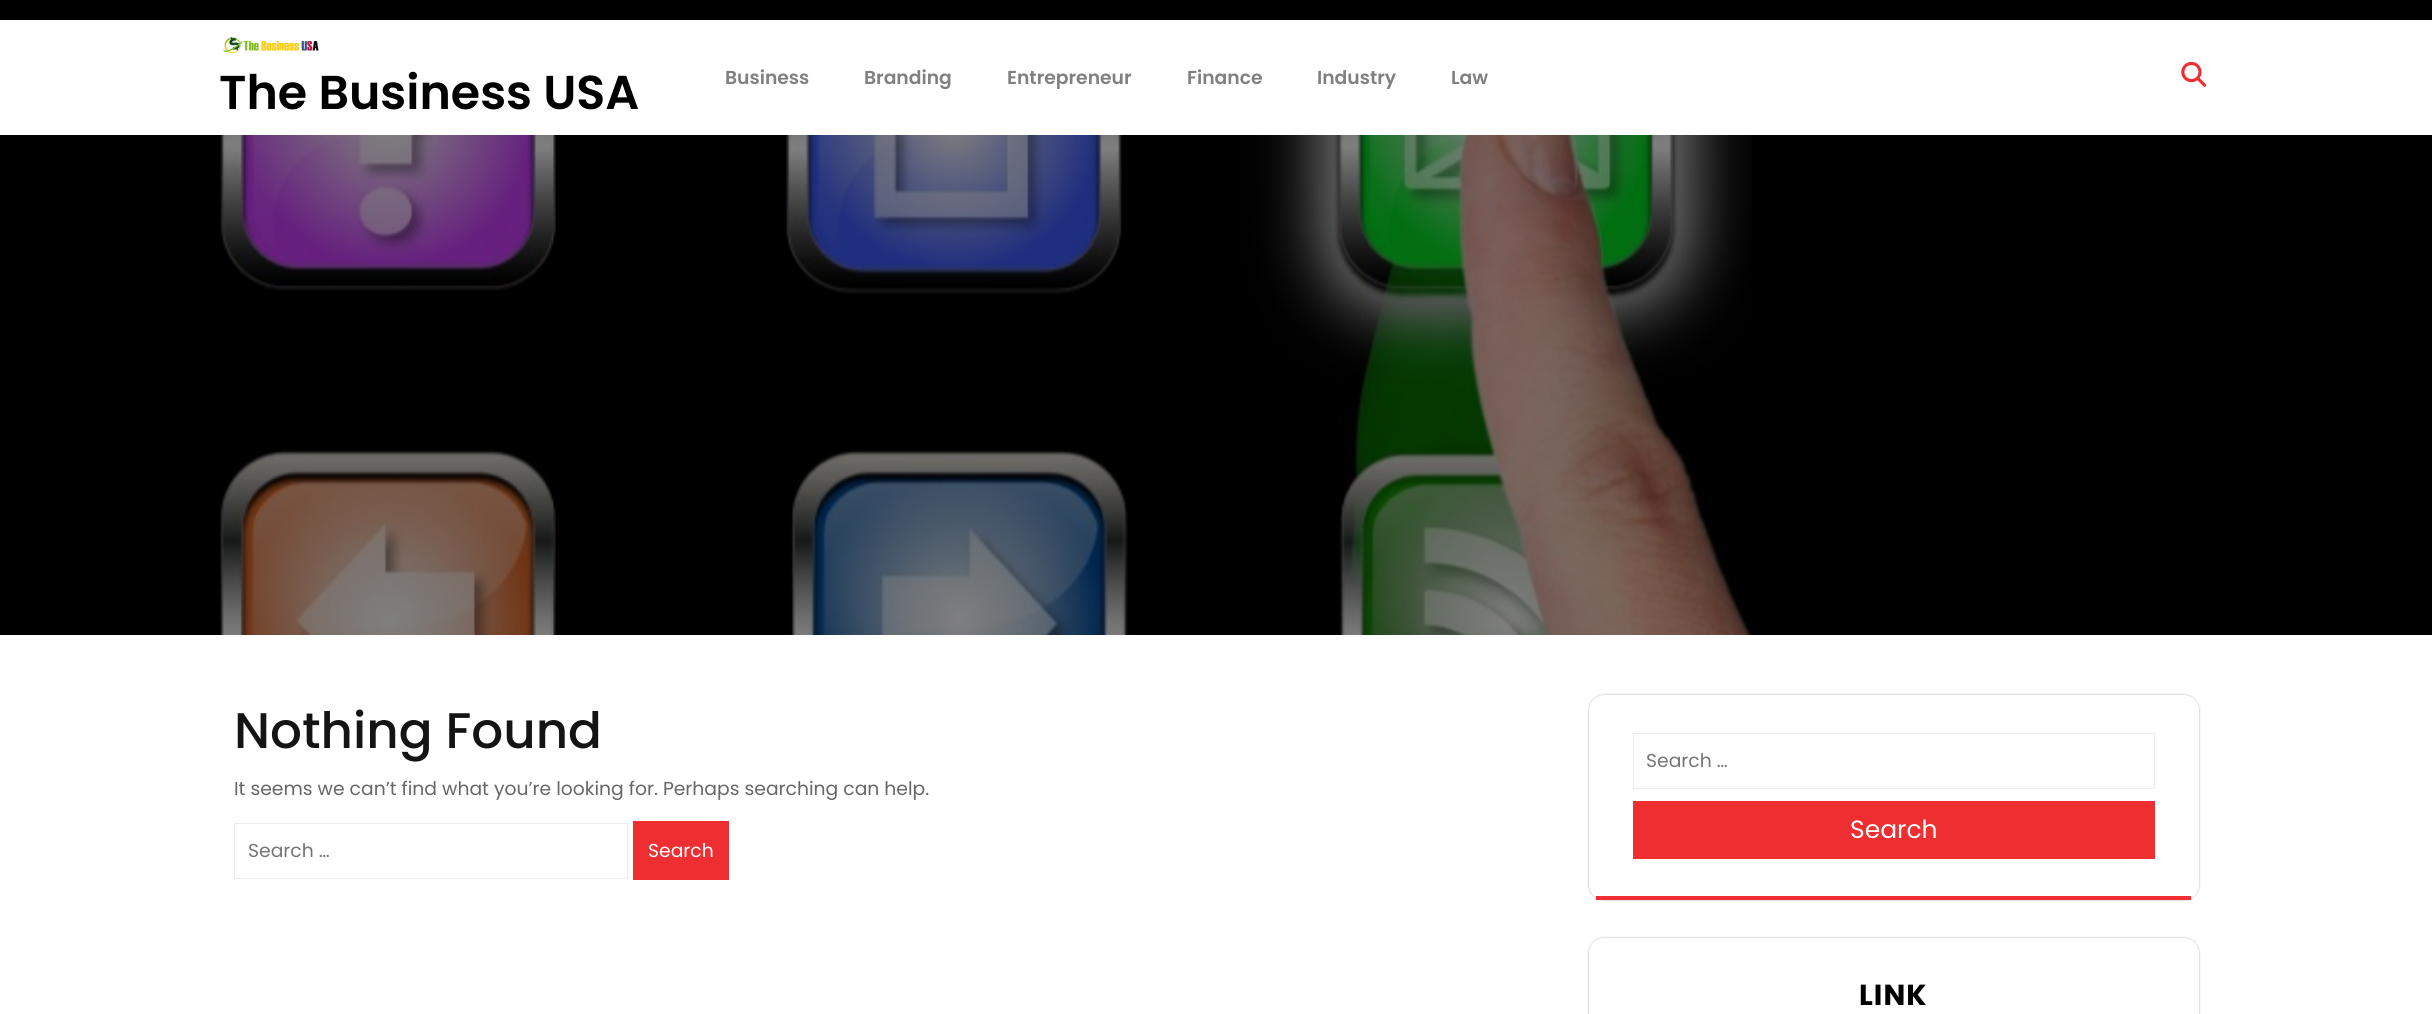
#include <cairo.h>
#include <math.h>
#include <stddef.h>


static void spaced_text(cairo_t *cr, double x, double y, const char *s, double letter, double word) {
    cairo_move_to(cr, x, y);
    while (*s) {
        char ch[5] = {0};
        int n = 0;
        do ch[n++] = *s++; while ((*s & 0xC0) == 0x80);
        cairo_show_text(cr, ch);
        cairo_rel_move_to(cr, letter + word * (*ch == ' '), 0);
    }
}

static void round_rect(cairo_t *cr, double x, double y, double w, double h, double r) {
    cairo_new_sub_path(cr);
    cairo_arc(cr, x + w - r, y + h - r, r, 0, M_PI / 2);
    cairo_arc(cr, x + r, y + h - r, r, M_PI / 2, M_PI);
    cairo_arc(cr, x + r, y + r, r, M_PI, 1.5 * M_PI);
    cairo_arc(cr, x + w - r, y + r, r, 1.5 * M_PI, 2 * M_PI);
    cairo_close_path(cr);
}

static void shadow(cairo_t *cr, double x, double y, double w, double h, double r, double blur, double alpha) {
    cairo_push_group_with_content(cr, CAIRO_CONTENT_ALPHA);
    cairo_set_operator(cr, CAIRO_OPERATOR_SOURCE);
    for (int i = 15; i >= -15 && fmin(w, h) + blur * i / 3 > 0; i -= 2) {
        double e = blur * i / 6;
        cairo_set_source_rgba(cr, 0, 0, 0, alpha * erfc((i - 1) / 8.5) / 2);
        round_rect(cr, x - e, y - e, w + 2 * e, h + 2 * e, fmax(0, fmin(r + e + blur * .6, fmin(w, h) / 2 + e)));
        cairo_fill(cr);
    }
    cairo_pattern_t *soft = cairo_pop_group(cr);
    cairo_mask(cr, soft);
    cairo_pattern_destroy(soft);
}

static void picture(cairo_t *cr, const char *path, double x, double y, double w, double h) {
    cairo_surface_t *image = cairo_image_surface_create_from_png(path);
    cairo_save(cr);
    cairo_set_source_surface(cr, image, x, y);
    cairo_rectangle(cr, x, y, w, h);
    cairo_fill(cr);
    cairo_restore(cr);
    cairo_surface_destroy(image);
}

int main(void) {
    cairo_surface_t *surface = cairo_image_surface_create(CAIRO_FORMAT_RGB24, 2432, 1014);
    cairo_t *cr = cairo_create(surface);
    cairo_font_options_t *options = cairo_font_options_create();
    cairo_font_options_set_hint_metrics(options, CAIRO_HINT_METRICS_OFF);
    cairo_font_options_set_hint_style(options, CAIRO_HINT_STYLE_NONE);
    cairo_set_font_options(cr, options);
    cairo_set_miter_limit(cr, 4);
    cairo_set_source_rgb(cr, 1, 1, 1);
    cairo_paint(cr);
    cairo_set_source_rgb(cr, 0, 0, 0);
    cairo_rectangle(cr, 0, 0, 2432, 20);
    cairo_fill(cr);
    picture(cr, "img1.png", 223, 37, 96, 17);
    cairo_select_font_face(cr, "Poppins SemiBold", CAIRO_FONT_SLANT_NORMAL, CAIRO_FONT_WEIGHT_NORMAL);
    cairo_set_font_size(cr, 47.5);
    cairo_move_to(cr, 219, 109);
    cairo_show_text(cr, "The Business USA");
    cairo_set_font_size(cr, 18.75);
    cairo_set_source_rgb(cr, 0.502, 0.502, 0.502);
    cairo_move_to(cr, 725, 84);
    cairo_show_text(cr, "Business");
    cairo_move_to(cr, 864, 84);
    cairo_show_text(cr, "Branding");
    cairo_move_to(cr, 1007, 84);
    cairo_show_text(cr, "Entrepreneur");
    cairo_move_to(cr, 1187, 84);
    cairo_show_text(cr, "Finance");
    cairo_move_to(cr, 1317, 84);
    cairo_show_text(cr, "Industry");
    cairo_move_to(cr, 1451, 84);
    cairo_show_text(cr, "Law");
    picture(cr, "img2.png", 2181, 61, 26, 26);
    cairo_set_source_rgb(cr, 0, 0, 0);
    cairo_rectangle(cr, 0, 135, 2432, 500);
    cairo_fill(cr);
    picture(cr, "img3.png", 220, 135, 1532, 500);
    cairo_select_font_face(cr, "Poppins Medium", CAIRO_FONT_SLANT_NORMAL, CAIRO_FONT_WEIGHT_NORMAL);
    cairo_set_font_size(cr, 50);
    cairo_set_source_rgb(cr, 0.082, 0.082, 0.082);
    cairo_move_to(cr, 234, 748);
    cairo_show_text(cr, "Nothing Found");
    cairo_select_font_face(cr, "Poppins", CAIRO_FONT_SLANT_NORMAL, CAIRO_FONT_WEIGHT_NORMAL);
    cairo_set_font_size(cr, 18.75);
    cairo_set_source_rgb(cr, 0.404, 0.404, 0.404);
    cairo_move_to(cr, 234, 795);
    cairo_show_text(cr, "It seems we can’t find what you’re looking for. Perhaps searching can help.");
    cairo_rectangle(cr, 234.5, 823.5, 393, 55);
    cairo_set_source_rgb(cr, 0.922, 0.922, 0.922);
    cairo_set_line_width(cr, 1);
    cairo_stroke(cr);
    cairo_set_source_rgb(cr, 0.459, 0.459, 0.459);
    cairo_move_to(cr, 248, 857);
    cairo_show_text(cr, "Search …");
    cairo_set_source_rgb(cr, 0.933, 0.18, 0.192);
    cairo_rectangle(cr, 633, 821, 96, 59);
    cairo_fill(cr);
    cairo_set_source_rgb(cr, 1, 1, 1);
    cairo_move_to(cr, 648, 857);
    cairo_show_text(cr, "Search");
    cairo_set_source_rgb(cr, 0.667, 0.667, 0.667);
    shadow(cr, 1589, 695, 610, 205, 15, 1, 1);
    cairo_set_source_rgb(cr, 1, 1, 1);
    round_rect(cr, 1589, 695, 610, 205, 15);
    cairo_fill(cr);
    cairo_set_source_rgb(cr, 0.933, 0.18, 0.192);
    cairo_rectangle(cr, 1596, 896, 595, 4);
    cairo_fill(cr);
    cairo_rectangle(cr, 1633.5, 733.5, 521, 55);
    cairo_set_source_rgb(cr, 0.922, 0.922, 0.922);
    cairo_stroke(cr);
    cairo_set_source_rgb(cr, 0.459, 0.459, 0.459);
    cairo_move_to(cr, 1646, 767);
    cairo_show_text(cr, "Search …");
    cairo_set_source_rgb(cr, 0.933, 0.18, 0.192);
    cairo_rectangle(cr, 1633, 801, 522, 58);
    cairo_fill(cr);
    cairo_set_font_size(cr, 25);
    cairo_set_source_rgb(cr, 1, 1, 1);
    cairo_move_to(cr, 1850, 838);
    cairo_show_text(cr, "Search");
    cairo_set_source_rgb(cr, 0.667, 0.667, 0.667);
    shadow(cr, 1589, 938, 610, 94, 15, 1, 1);
    cairo_set_source_rgb(cr, 1, 1, 1);
    round_rect(cr, 1589, 938, 610, 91, 15);
    cairo_fill(cr);
    cairo_select_font_face(cr, "Poppins", CAIRO_FONT_SLANT_NORMAL, CAIRO_FONT_WEIGHT_BOLD);
    cairo_set_font_size(cr, 29);
    cairo_set_source_rgb(cr, 0, 0, 0);
    spaced_text(cr, 1859, 1005, "LINK", 1, 0);
    cairo_surface_write_to_png(surface, "page.png");
    cairo_font_options_destroy(options);
    cairo_destroy(cr);
    cairo_surface_destroy(surface);
    return 0;
}
